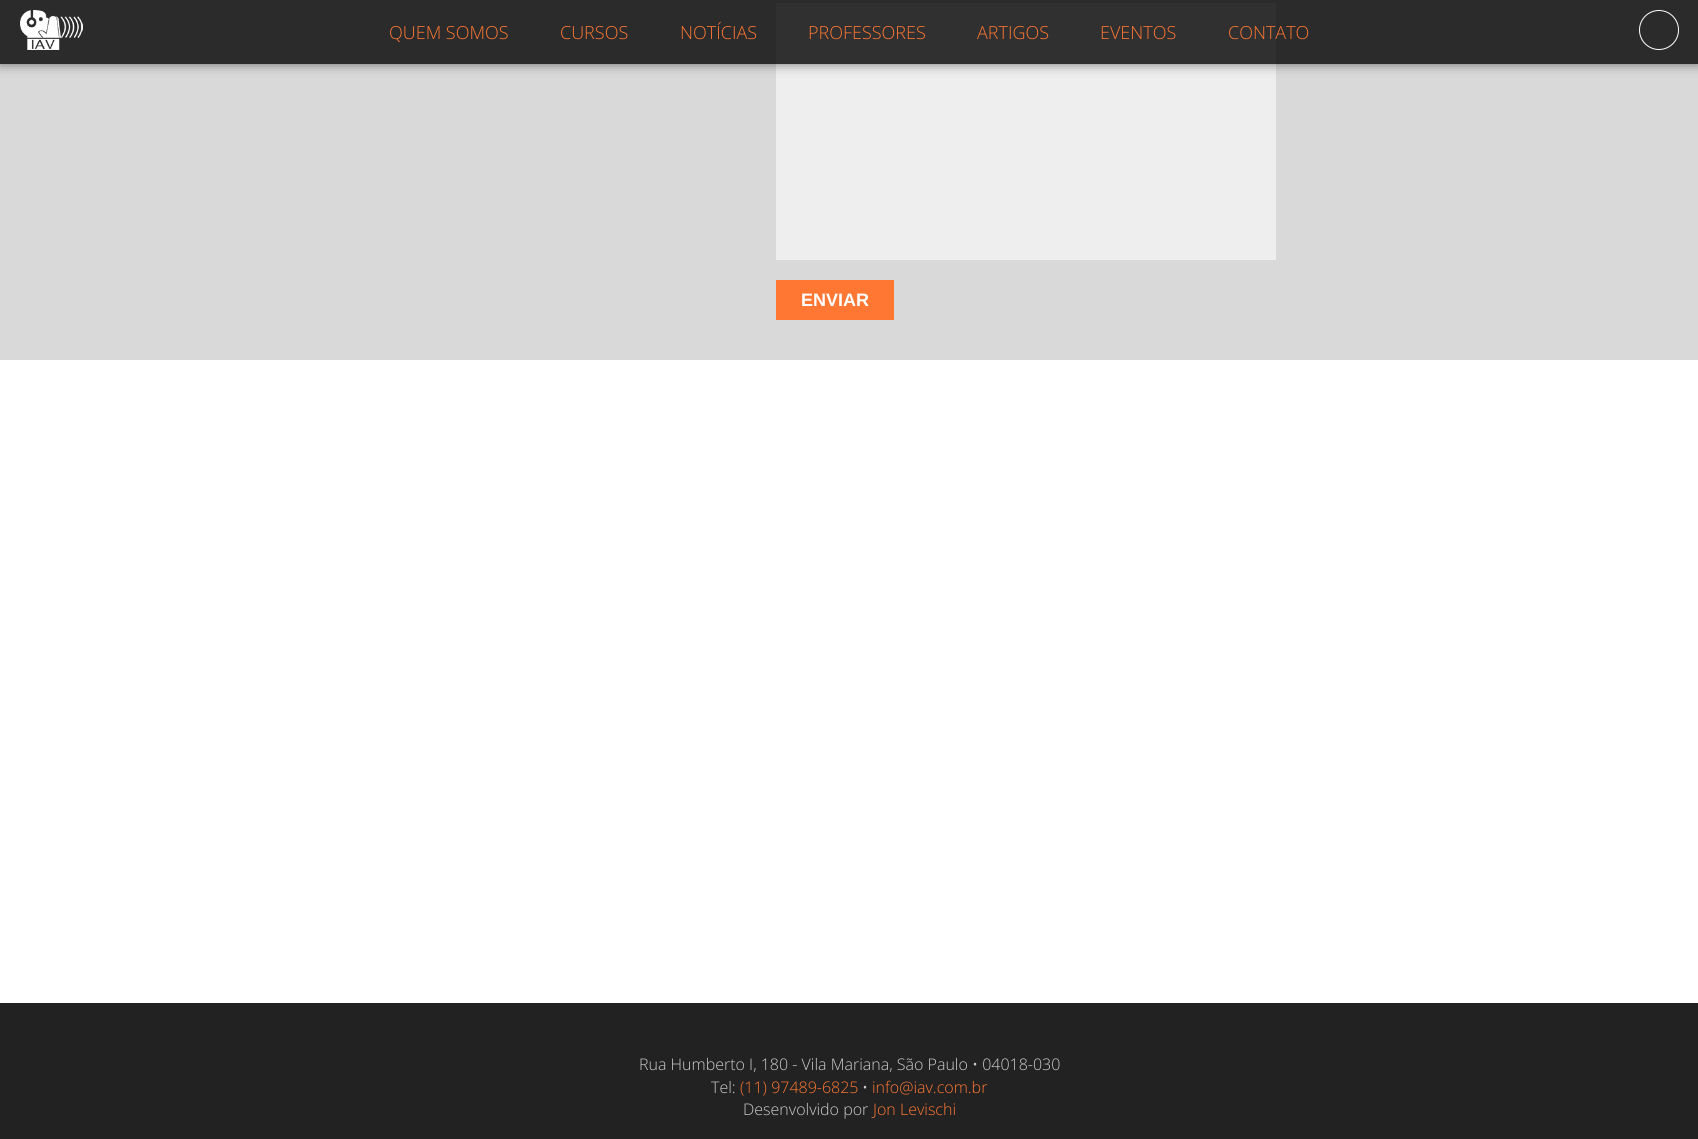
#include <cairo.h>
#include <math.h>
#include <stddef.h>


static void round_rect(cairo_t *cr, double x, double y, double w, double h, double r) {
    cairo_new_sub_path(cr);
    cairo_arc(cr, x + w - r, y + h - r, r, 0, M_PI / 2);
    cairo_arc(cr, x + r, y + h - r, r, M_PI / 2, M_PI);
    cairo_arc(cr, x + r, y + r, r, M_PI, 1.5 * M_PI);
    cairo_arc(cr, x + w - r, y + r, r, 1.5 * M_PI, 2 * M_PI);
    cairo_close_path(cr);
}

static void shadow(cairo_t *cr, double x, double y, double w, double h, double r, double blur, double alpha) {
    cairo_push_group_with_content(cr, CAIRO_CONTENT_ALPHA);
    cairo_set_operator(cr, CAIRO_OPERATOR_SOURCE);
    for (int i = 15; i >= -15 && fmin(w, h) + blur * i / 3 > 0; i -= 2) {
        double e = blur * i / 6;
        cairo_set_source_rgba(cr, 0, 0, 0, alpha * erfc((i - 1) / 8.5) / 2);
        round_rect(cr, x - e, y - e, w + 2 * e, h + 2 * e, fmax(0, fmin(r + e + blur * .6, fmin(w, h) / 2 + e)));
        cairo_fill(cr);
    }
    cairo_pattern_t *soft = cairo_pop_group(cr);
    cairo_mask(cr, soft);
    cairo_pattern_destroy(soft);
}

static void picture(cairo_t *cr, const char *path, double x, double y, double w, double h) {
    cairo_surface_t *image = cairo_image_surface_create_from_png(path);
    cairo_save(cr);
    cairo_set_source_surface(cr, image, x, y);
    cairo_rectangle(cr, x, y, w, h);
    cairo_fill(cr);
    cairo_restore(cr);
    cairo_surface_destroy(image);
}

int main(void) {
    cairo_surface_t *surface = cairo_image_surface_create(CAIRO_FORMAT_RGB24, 1698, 1139);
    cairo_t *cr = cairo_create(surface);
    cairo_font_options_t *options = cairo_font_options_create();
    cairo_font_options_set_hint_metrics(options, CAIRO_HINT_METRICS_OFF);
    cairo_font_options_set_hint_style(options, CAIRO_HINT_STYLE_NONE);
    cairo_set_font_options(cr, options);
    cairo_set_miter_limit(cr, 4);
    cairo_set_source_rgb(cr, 1, 1, 1);
    cairo_paint(cr);
    cairo_set_source_rgb(cr, 0.851, 0.851, 0.851);
    cairo_rectangle(cr, 0, 0, 1698, 360);
    cairo_fill(cr);
    cairo_set_source_rgb(cr, 0.933, 0.933, 0.933);
    cairo_rectangle(cr, 776, 3, 500, 257);
    cairo_fill(cr);
    cairo_save(cr);
    cairo_set_fill_rule(cr, CAIRO_FILL_RULE_EVEN_ODD);
    cairo_new_path(cr);
    cairo_move_to(cr, 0, 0);
    cairo_line_to(cr, 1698, 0);
    cairo_line_to(cr, 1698, 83);
    cairo_line_to(cr, 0, 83);
    cairo_close_path(cr);
    cairo_move_to(cr, 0, 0);
    cairo_line_to(cr, 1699, 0);
    cairo_line_to(cr, 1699, 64);
    cairo_line_to(cr, 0, 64);
    cairo_close_path(cr);
    cairo_clip(cr);
    cairo_set_source_rgb(cr, 0, 0, 0);
    shadow(cr, 0, 0, 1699, 64, 0, 6, 0.5);
    cairo_restore(cr);
    cairo_set_source_rgba(cr, 0, 0, 0, 0.8);
    cairo_rectangle(cr, 0, 0, 1698, 64);
    cairo_fill(cr);
    picture(cr, "img1.png", 20, 10, 63, 40);
    cairo_arc(cr, 1659, 30, 19.5, 0, 2 * M_PI);
    cairo_set_source_rgb(cr, 1, 1, 1);
    cairo_set_line_width(cr, 1);
    cairo_stroke(cr);
    cairo_select_font_face(cr, "Open Sans Light", CAIRO_FONT_SLANT_NORMAL, CAIRO_FONT_WEIGHT_NORMAL);
    cairo_set_font_size(cr, 18);
    cairo_set_source_rgb(cr, 1, 0.467, 0.2);
    cairo_move_to(cr, 389, 39);
    cairo_show_text(cr, "QUEM SOMOS");
    cairo_move_to(cr, 560, 39);
    cairo_show_text(cr, "CURSOS");
    cairo_move_to(cr, 680, 39);
    cairo_show_text(cr, "NOTÍCIAS");
    cairo_move_to(cr, 808, 39);
    cairo_show_text(cr, "PROFESSORES");
    cairo_move_to(cr, 977, 39);
    cairo_show_text(cr, "ARTIGOS");
    cairo_move_to(cr, 1100, 39);
    cairo_show_text(cr, "EVENTOS");
    cairo_move_to(cr, 1228, 39);
    cairo_show_text(cr, "CONTATO");
    cairo_rectangle(cr, 776, 280, 118, 40);
    cairo_fill(cr);
    cairo_select_font_face(cr, "Liberation Sans", CAIRO_FONT_SLANT_NORMAL, CAIRO_FONT_WEIGHT_BOLD);
    cairo_set_source_rgb(cr, 1, 1, 1);
    cairo_move_to(cr, 801, 306);
    cairo_show_text(cr, "ENVIAR");
    cairo_set_source_rgb(cr, 0.133, 0.133, 0.133);
    cairo_rectangle(cr, 0, 1003, 1698, 136);
    cairo_fill(cr);
    cairo_select_font_face(cr, "Open Sans Light", CAIRO_FONT_SLANT_NORMAL, CAIRO_FONT_WEIGHT_NORMAL);
    cairo_set_font_size(cr, 16);
    cairo_set_source_rgb(cr, 0.8, 0.8, 0.8);
    cairo_move_to(cr, 639, 1070);
    cairo_show_text(cr, "Rua Humberto I, 180 - Vila Mariana, São Paulo • 04018-030");
    cairo_move_to(cr, 711, 1093);
    cairo_show_text(cr, "Tel:");
    cairo_set_source_rgb(cr, 1, 0.467, 0.2);
    cairo_move_to(cr, 740, 1093);
    cairo_show_text(cr, "(11) 97489-6825");
    cairo_set_source_rgb(cr, 0.8, 0.8, 0.8);
    cairo_move_to(cr, 862, 1093);
    cairo_show_text(cr, "•");
    cairo_set_source_rgb(cr, 1, 0.467, 0.2);
    cairo_move_to(cr, 872, 1093);
    cairo_show_text(cr, "info@iav.com.br");
    cairo_set_source_rgb(cr, 0.8, 0.8, 0.8);
    cairo_move_to(cr, 743, 1115);
    cairo_show_text(cr, "Desenvolvido por");
    cairo_set_source_rgb(cr, 1, 0.467, 0.2);
    cairo_move_to(cr, 873, 1115);
    cairo_show_text(cr, "Jon Levischi");
    cairo_surface_write_to_png(surface, "page.png");
    cairo_font_options_destroy(options);
    cairo_destroy(cr);
    cairo_surface_destroy(surface);
    return 0;
}
